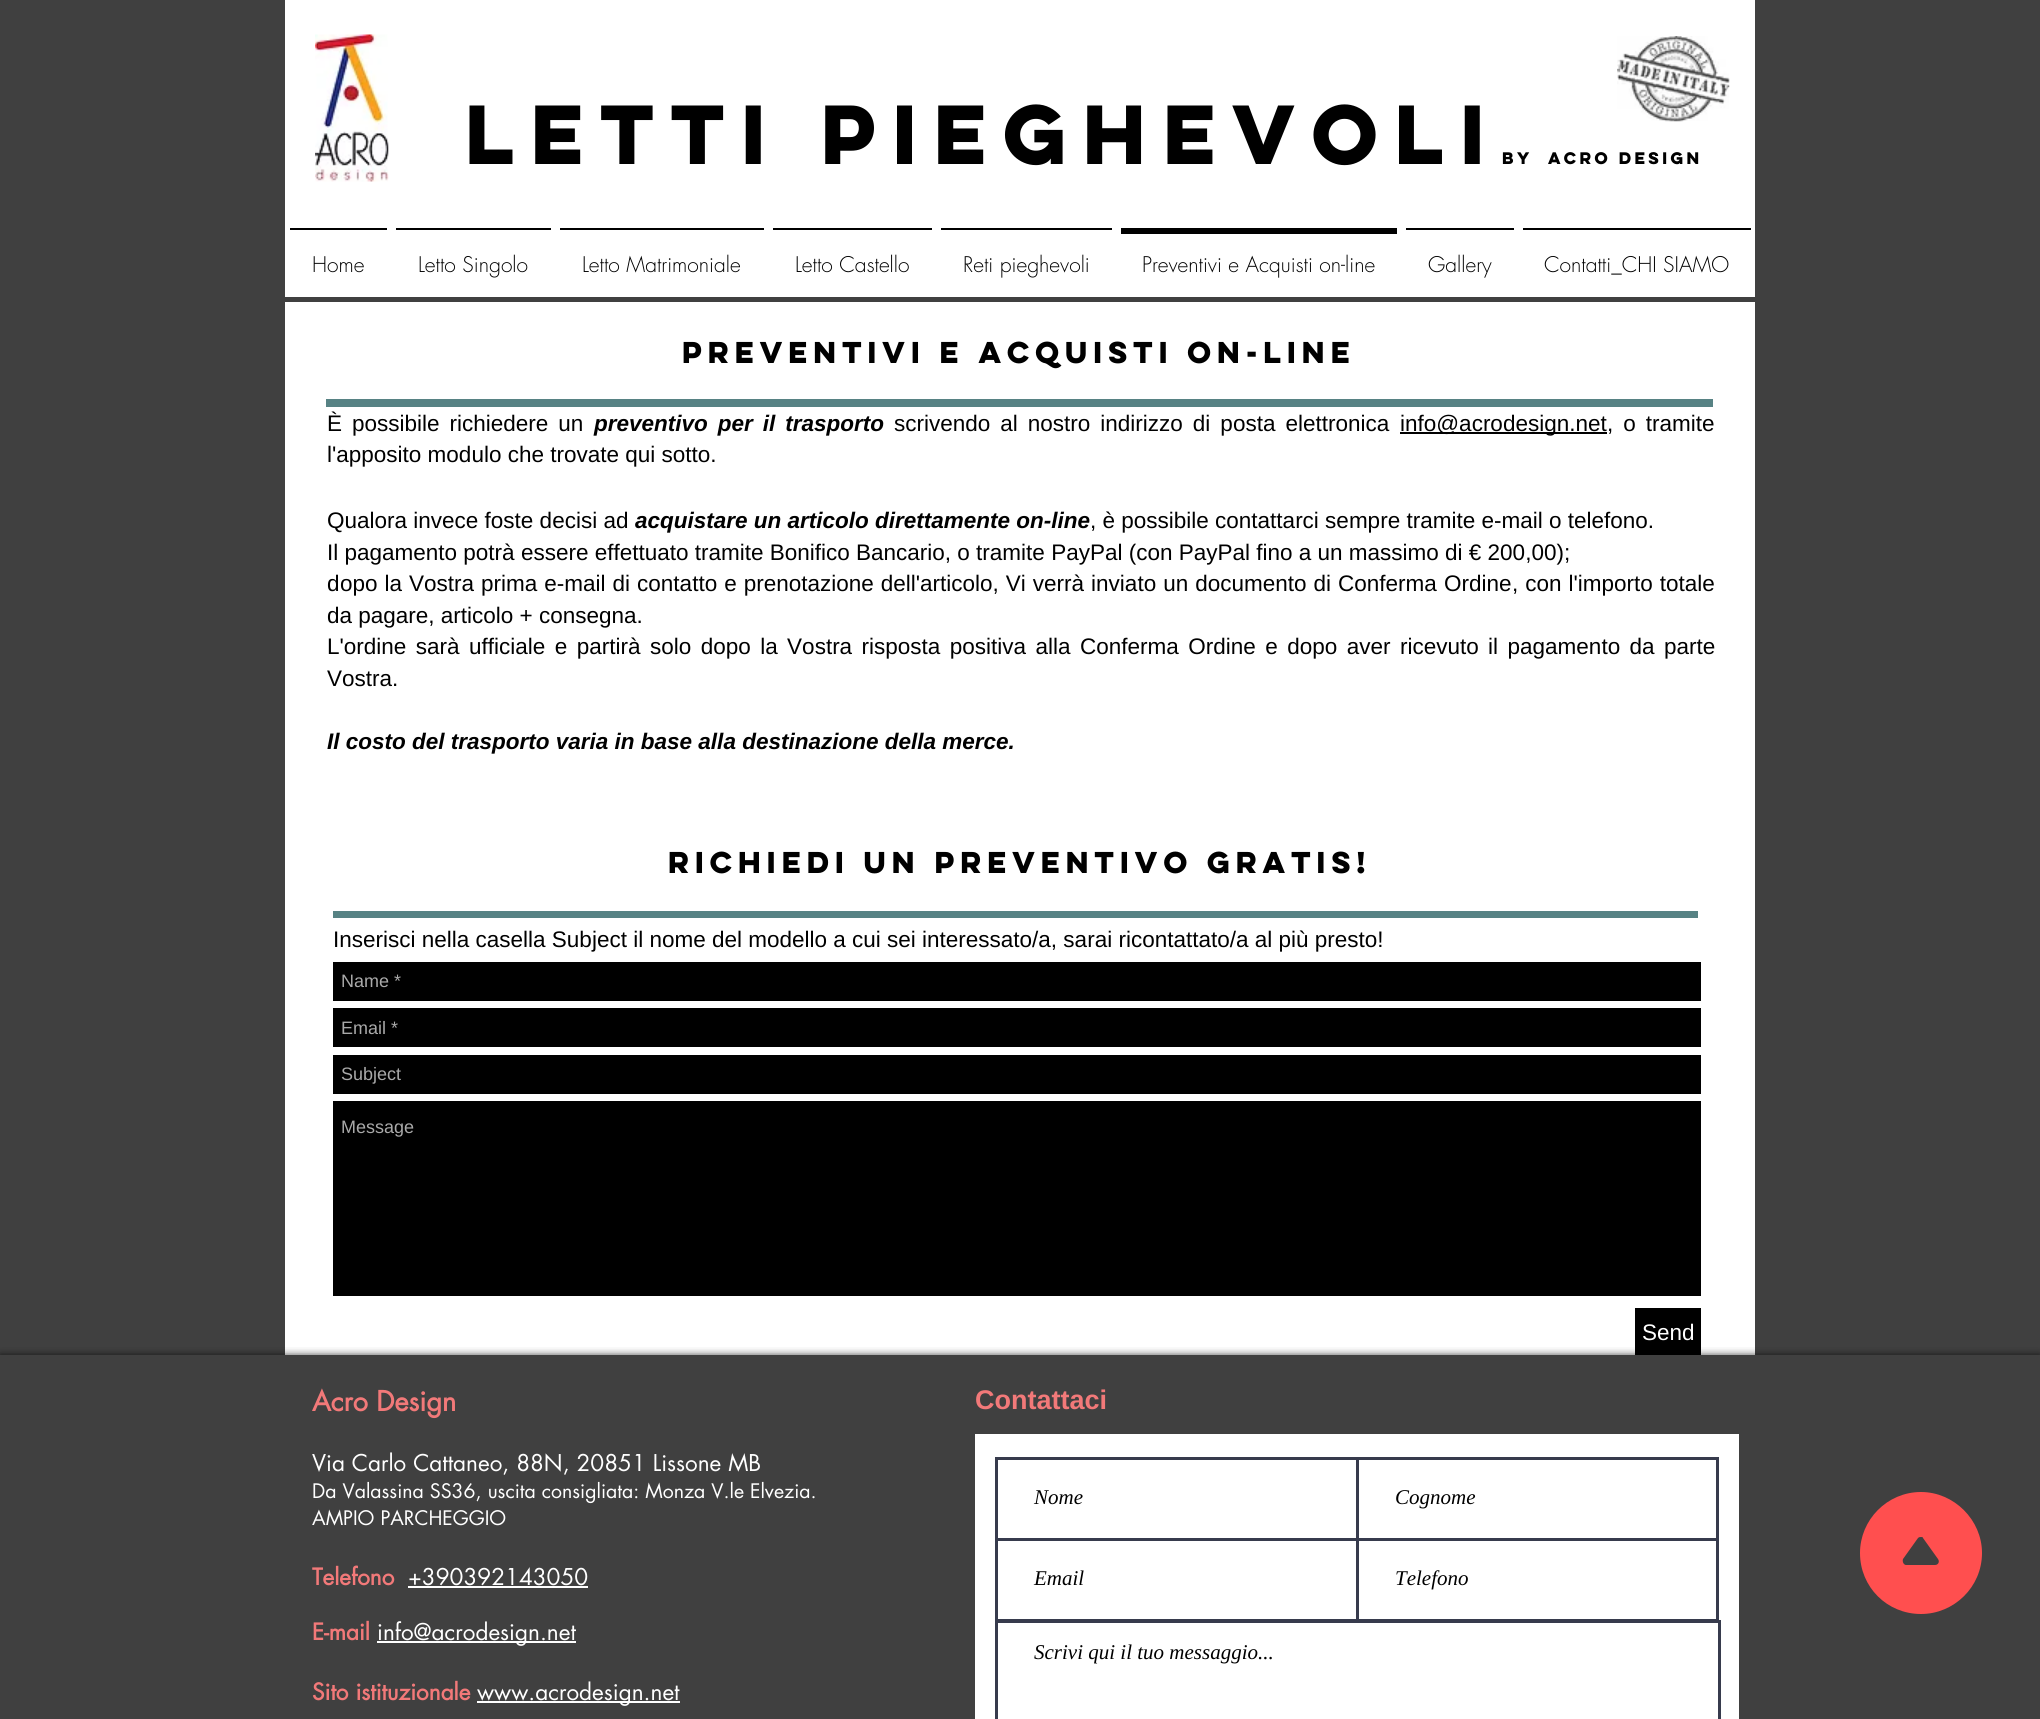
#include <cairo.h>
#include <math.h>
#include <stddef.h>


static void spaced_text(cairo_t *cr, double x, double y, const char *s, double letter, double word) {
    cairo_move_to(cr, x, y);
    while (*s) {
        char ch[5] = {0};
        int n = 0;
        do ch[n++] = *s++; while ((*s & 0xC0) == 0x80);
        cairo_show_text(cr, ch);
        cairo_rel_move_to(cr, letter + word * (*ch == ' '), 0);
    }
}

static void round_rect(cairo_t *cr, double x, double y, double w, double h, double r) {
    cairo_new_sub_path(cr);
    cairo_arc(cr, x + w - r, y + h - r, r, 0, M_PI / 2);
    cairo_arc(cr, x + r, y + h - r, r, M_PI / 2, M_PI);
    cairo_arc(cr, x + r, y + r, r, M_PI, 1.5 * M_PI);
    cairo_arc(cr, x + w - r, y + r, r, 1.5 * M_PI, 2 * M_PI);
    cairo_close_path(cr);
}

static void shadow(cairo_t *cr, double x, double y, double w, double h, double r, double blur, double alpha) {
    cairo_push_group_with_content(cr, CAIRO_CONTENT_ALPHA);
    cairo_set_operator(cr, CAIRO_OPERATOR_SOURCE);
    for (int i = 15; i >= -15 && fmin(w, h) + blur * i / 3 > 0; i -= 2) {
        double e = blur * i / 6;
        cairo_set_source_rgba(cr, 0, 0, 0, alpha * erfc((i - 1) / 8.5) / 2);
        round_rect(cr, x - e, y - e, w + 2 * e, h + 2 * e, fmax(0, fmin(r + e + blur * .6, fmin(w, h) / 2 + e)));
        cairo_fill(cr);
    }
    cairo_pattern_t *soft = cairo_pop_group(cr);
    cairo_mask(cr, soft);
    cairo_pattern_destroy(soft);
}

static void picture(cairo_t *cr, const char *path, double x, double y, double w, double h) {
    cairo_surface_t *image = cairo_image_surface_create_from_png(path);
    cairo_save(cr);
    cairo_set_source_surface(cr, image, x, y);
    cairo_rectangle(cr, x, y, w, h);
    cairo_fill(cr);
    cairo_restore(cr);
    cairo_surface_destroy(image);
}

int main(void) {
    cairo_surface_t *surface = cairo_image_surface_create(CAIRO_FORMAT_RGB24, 2040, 1719);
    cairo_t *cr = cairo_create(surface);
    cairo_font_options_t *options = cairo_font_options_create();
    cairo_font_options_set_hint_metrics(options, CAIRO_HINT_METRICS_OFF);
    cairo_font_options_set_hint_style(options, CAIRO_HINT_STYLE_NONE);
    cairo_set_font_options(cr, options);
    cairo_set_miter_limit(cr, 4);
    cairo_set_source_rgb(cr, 0.251, 0.251, 0.251);
    cairo_paint(cr);
    cairo_set_source_rgb(cr, 1, 1, 1);
    cairo_rectangle(cr, 285, 0, 1470, 297);
    cairo_fill(cr);
    picture(cr, "img1.png", 315, 34, 74, 148);
    picture(cr, "img2.png", 1617, 36, 113, 86);
    cairo_select_font_face(cr, "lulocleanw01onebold", CAIRO_FONT_SLANT_NORMAL, CAIRO_FONT_WEIGHT_BOLD);
    cairo_set_font_size(cr, 75);
    cairo_set_source_rgb(cr, 0, 0, 0);
    cairo_move_to(cr, 465, 164);
    cairo_show_text(cr, "Letti pieghevoli");
    cairo_set_font_size(cr, 15);
    cairo_move_to(cr, 1502, 164);
    cairo_show_text(cr, "by  Acro Design");
    cairo_rectangle(cr, 290, 228, 97, 2);
    cairo_fill(cr);
    cairo_select_font_face(cr, "futura Light", CAIRO_FONT_SLANT_NORMAL, CAIRO_FONT_WEIGHT_NORMAL);
    cairo_set_font_size(cr, 21);
    cairo_move_to(cr, 312, 272);
    cairo_show_text(cr, "Home");
    cairo_rectangle(cr, 396, 228, 155, 2);
    cairo_fill(cr);
    cairo_move_to(cr, 418, 272);
    cairo_show_text(cr, "Letto Singolo");
    cairo_rectangle(cr, 560, 228, 204, 2);
    cairo_fill(cr);
    cairo_move_to(cr, 582, 272);
    cairo_show_text(cr, "Letto Matrimoniale");
    cairo_rectangle(cr, 773, 228, 159, 2);
    cairo_fill(cr);
    cairo_move_to(cr, 795, 272);
    cairo_show_text(cr, "Letto Castello");
    cairo_rectangle(cr, 941, 228, 171, 2);
    cairo_fill(cr);
    cairo_move_to(cr, 963, 272);
    cairo_show_text(cr, "Reti pieghevoli");
    cairo_rectangle(cr, 1121, 228, 276, 6);
    cairo_fill(cr);
    cairo_move_to(cr, 1142, 272);
    cairo_show_text(cr, "Preventivi e Acquisti on-line");
    cairo_rectangle(cr, 1406, 228, 108, 2);
    cairo_fill(cr);
    cairo_move_to(cr, 1428, 272);
    cairo_show_text(cr, "Gallery");
    cairo_rectangle(cr, 1523, 228, 228, 2);
    cairo_fill(cr);
    cairo_move_to(cr, 1544, 272);
    cairo_show_text(cr, "Contatti_CHI SIAMO");
    cairo_set_source_rgb(cr, 1, 1, 1);
    cairo_rectangle(cr, 285, 302, 1470, 1053);
    cairo_fill(cr);
    cairo_select_font_face(cr, "lulocleanw01onebold", CAIRO_FONT_SLANT_NORMAL, CAIRO_FONT_WEIGHT_BOLD);
    cairo_set_font_size(cr, 27);
    cairo_set_source_rgb(cr, 0, 0, 0);
    cairo_move_to(cr, 682, 363);
    cairo_show_text(cr, "Preventivi e Acquisti on-line");
    cairo_set_source_rgb(cr, 0.341, 0.51, 0.518);
    cairo_rectangle(cr, 326, 399, 1387, 8);
    cairo_fill(cr);
    cairo_select_font_face(cr, "Liberation Sans", CAIRO_FONT_SLANT_NORMAL, CAIRO_FONT_WEIGHT_NORMAL);
    cairo_set_font_size(cr, 22.5);
    cairo_set_source_rgb(cr, 0, 0, 0);
    spaced_text(cr, 327, 431, "È possibile richiedere un", 0, 3.75);
    cairo_select_font_face(cr, "Liberation Sans", CAIRO_FONT_SLANT_ITALIC, CAIRO_FONT_WEIGHT_BOLD);
    spaced_text(cr, 594, 431, "preventivo per il trasporto", 0, 3.75);
    cairo_select_font_face(cr, "Liberation Sans", CAIRO_FONT_SLANT_NORMAL, CAIRO_FONT_WEIGHT_NORMAL);
    spaced_text(cr, 894, 431, "scrivendo al nostro indirizzo di posta elettronica", 0, 3.75);
    cairo_rectangle(cr, 1400, 432, 207, 2);
    cairo_fill(cr);
    cairo_move_to(cr, 1400, 431);
    cairo_show_text(cr, "info@acrodesign.net");
    spaced_text(cr, 1607, 431, ", o tramite", 0, 3.75);
    cairo_move_to(cr, 327, 462);
    cairo_show_text(cr, "l'apposito modulo che trovate qui sotto.");
    cairo_move_to(cr, 327, 528);
    cairo_show_text(cr, "Qualora invece foste decisi ad");
    cairo_select_font_face(cr, "Liberation Sans", CAIRO_FONT_SLANT_ITALIC, CAIRO_FONT_WEIGHT_BOLD);
    cairo_move_to(cr, 635, 528);
    cairo_show_text(cr, "acquistare un articolo direttamente on-line");
    cairo_select_font_face(cr, "Liberation Sans", CAIRO_FONT_SLANT_NORMAL, CAIRO_FONT_WEIGHT_NORMAL);
    cairo_move_to(cr, 1090, 528);
    cairo_show_text(cr, ", è possibile contattarci sempre tramite e-mail o telefono.");
    cairo_move_to(cr, 327, 560);
    cairo_show_text(cr, "Il pagamento potrà essere effettuato tramite Bonifico Bancario, o tramite PayPal (con PayPal fino a un massimo di € 200,00);");
    cairo_move_to(cr, 327, 591);
    cairo_show_text(cr, "d");
    spaced_text(cr, 340, 591, "opo la Vostra prima e-mail di contatto e prenotazione dell'articolo, Vi verrà inviato un documento di", 0, 0.75);
    spaced_text(cr, 1338, 591, "Conferma Ordine", 0, 1);
    spaced_text(cr, 1512, 591, ", con l'importo totale", 0, 0.75);
    cairo_move_to(cr, 327, 623);
    cairo_show_text(cr, "da pagare, articolo + consegna.");
    spaced_text(cr, 327, 654, "L'ordine sarà ufficiale e partirà solo dopo la Vostra risposta positiva alla Conferma Ordine e dopo aver ricevuto il pagamento da parte", 0, 3.2);
    cairo_move_to(cr, 327, 686);
    cairo_show_text(cr, "Vostra.");
    cairo_select_font_face(cr, "Liberation Sans", CAIRO_FONT_SLANT_ITALIC, CAIRO_FONT_WEIGHT_BOLD);
    cairo_move_to(cr, 327, 749);
    cairo_show_text(cr, "Il costo del trasporto varia in base alla destinazione della merce.");
    cairo_select_font_face(cr, "lulocleanw01onebold", CAIRO_FONT_SLANT_NORMAL, CAIRO_FONT_WEIGHT_BOLD);
    cairo_set_font_size(cr, 27);
    cairo_move_to(cr, 668, 873);
    cairo_show_text(cr, "Richiedi un PREVENTIVO GRATIS!");
    cairo_set_source_rgb(cr, 0.341, 0.51, 0.518);
    cairo_rectangle(cr, 333, 911, 1365, 7);
    cairo_fill(cr);
    cairo_select_font_face(cr, "Liberation Sans", CAIRO_FONT_SLANT_NORMAL, CAIRO_FONT_WEIGHT_NORMAL);
    cairo_set_font_size(cr, 22.5);
    cairo_set_source_rgb(cr, 0, 0, 0);
    cairo_move_to(cr, 333, 947);
    cairo_show_text(cr, "Inserisci nella casella Subject il nome del modello a cui sei interessato/a, sarai ricontattato/a al più presto!");
    cairo_rectangle(cr, 333, 962, 1368, 39);
    cairo_fill(cr);
    cairo_set_font_size(cr, 18);
    cairo_set_source_rgb(cr, 0.663, 0.663, 0.663);
    cairo_move_to(cr, 341, 987);
    cairo_show_text(cr, "Name *");
    cairo_set_source_rgb(cr, 0, 0, 0);
    cairo_rectangle(cr, 333, 1008, 1368, 39);
    cairo_fill(cr);
    cairo_set_source_rgb(cr, 0.663, 0.663, 0.663);
    cairo_move_to(cr, 341, 1034);
    cairo_show_text(cr, "Email *");
    cairo_set_source_rgb(cr, 0, 0, 0);
    cairo_rectangle(cr, 333, 1055, 1368, 39);
    cairo_fill(cr);
    cairo_set_source_rgb(cr, 0.663, 0.663, 0.663);
    cairo_move_to(cr, 341, 1080);
    cairo_show_text(cr, "Subject");
    cairo_set_source_rgb(cr, 0, 0, 0);
    cairo_rectangle(cr, 333, 1101, 1368, 195);
    cairo_fill(cr);
    cairo_set_source_rgb(cr, 0.663, 0.663, 0.663);
    cairo_move_to(cr, 341, 1133);
    cairo_show_text(cr, "Message");
    cairo_set_source_rgb(cr, 0, 0, 0);
    cairo_rectangle(cr, 1635, 1308, 66, 47);
    cairo_fill(cr);
    cairo_set_font_size(cr, 22.5);
    cairo_set_source_rgb(cr, 1, 1, 1);
    cairo_move_to(cr, 1642, 1340);
    cairo_show_text(cr, "Send");
    cairo_save(cr);
    cairo_rectangle(cr, 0, 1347, 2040, 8);
    cairo_clip(cr);
    cairo_set_source_rgb(cr, 0, 0, 0);
    shadow(cr, 0, 1355, 2040, 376, 0, 4, 0.7);
    cairo_restore(cr);
    cairo_select_font_face(cr, "futura", CAIRO_FONT_SLANT_NORMAL, CAIRO_FONT_WEIGHT_BOLD);
    cairo_set_font_size(cr, 27);
    cairo_set_source_rgb(cr, 0.949, 0.475, 0.475);
    cairo_move_to(cr, 312, 1411);
    cairo_show_text(cr, "Acro Design");
    cairo_select_font_face(cr, "futura", CAIRO_FONT_SLANT_NORMAL, CAIRO_FONT_WEIGHT_NORMAL);
    cairo_set_font_size(cr, 22.5);
    cairo_set_source_rgb(cr, 1, 1, 1);
    cairo_move_to(cr, 312, 1471);
    cairo_show_text(cr, "Via Carlo Cattaneo, 88N, 20851 Lissone MB");
    cairo_set_font_size(cr, 19.5);
    cairo_move_to(cr, 312, 1498);
    cairo_show_text(cr, "Da Valassina SS36, uscita consigliata: Monza V.le Elvezia.");
    cairo_move_to(cr, 312, 1525);
    cairo_show_text(cr, "AMPIO PARCHEGGIO");
    cairo_select_font_face(cr, "futura", CAIRO_FONT_SLANT_NORMAL, CAIRO_FONT_WEIGHT_BOLD);
    cairo_set_font_size(cr, 22.5);
    cairo_set_source_rgb(cr, 0.949, 0.475, 0.475);
    cairo_move_to(cr, 312, 1585);
    cairo_show_text(cr, "Telefono");
    cairo_select_font_face(cr, "futura", CAIRO_FONT_SLANT_NORMAL, CAIRO_FONT_WEIGHT_NORMAL);
    cairo_set_source_rgb(cr, 1, 1, 1);
    cairo_move_to(cr, 408, 1585);
    cairo_show_text(cr, "+390392143050");
    cairo_rectangle(cr, 408, 1586, 180, 2);
    cairo_fill(cr);
    cairo_select_font_face(cr, "futura", CAIRO_FONT_SLANT_NORMAL, CAIRO_FONT_WEIGHT_BOLD);
    cairo_set_source_rgb(cr, 0.949, 0.475, 0.475);
    cairo_move_to(cr, 312, 1640);
    cairo_show_text(cr, "E-mail");
    cairo_set_source_rgb(cr, 1, 1, 1);
    cairo_rectangle(cr, 377, 1641, 199, 2);
    cairo_fill(cr);
    cairo_select_font_face(cr, "futura", CAIRO_FONT_SLANT_NORMAL, CAIRO_FONT_WEIGHT_NORMAL);
    cairo_move_to(cr, 377, 1640);
    cairo_show_text(cr, "info@acrodesign.net");
    cairo_select_font_face(cr, "futura", CAIRO_FONT_SLANT_NORMAL, CAIRO_FONT_WEIGHT_BOLD);
    cairo_set_source_rgb(cr, 0.949, 0.475, 0.475);
    cairo_move_to(cr, 312, 1700);
    cairo_show_text(cr, "Sito istituzionale");
    cairo_set_source_rgb(cr, 1, 1, 1);
    cairo_rectangle(cr, 477, 1701, 203, 2);
    cairo_fill(cr);
    cairo_select_font_face(cr, "futura", CAIRO_FONT_SLANT_NORMAL, CAIRO_FONT_WEIGHT_NORMAL);
    cairo_move_to(cr, 477, 1700);
    cairo_show_text(cr, "www.acrodesign.net");
    cairo_select_font_face(cr, "Liberation Sans", CAIRO_FONT_SLANT_NORMAL, CAIRO_FONT_WEIGHT_BOLD);
    cairo_set_font_size(cr, 27);
    cairo_set_source_rgb(cr, 0.949, 0.475, 0.475);
    cairo_move_to(cr, 975, 1409);
    cairo_show_text(cr, "Contattaci");
    cairo_set_source_rgb(cr, 1, 1, 1);
    cairo_rectangle(cr, 975, 1434, 764, 285);
    cairo_fill(cr);
    cairo_rectangle(cr, 996.5, 1458.5, 361, 81);
    cairo_set_source_rgb(cr, 0.216, 0.231, 0.302);
    cairo_set_line_width(cr, 3);
    cairo_stroke(cr);
    cairo_select_font_face(cr, "Liberation Serif", CAIRO_FONT_SLANT_ITALIC, CAIRO_FONT_WEIGHT_NORMAL);
    cairo_set_font_size(cr, 21);
    cairo_set_source_rgb(cr, 0, 0, 0);
    cairo_move_to(cr, 1034, 1504);
    cairo_show_text(cr, "Nome");
    cairo_rectangle(cr, 1357.5, 1458.5, 360, 81);
    cairo_set_source_rgb(cr, 0.216, 0.231, 0.302);
    cairo_stroke(cr);
    cairo_set_source_rgb(cr, 0, 0, 0);
    cairo_move_to(cr, 1395, 1504);
    cairo_show_text(cr, "Cognome");
    cairo_rectangle(cr, 996.5, 1539.5, 361, 81);
    cairo_set_source_rgb(cr, 0.216, 0.231, 0.302);
    cairo_stroke(cr);
    cairo_set_source_rgb(cr, 0, 0, 0);
    cairo_move_to(cr, 1034, 1585);
    cairo_show_text(cr, "Email");
    cairo_rectangle(cr, 1357.5, 1539.5, 360, 81);
    cairo_set_source_rgb(cr, 0.216, 0.231, 0.302);
    cairo_stroke(cr);
    cairo_set_source_rgb(cr, 0, 0, 0);
    cairo_move_to(cr, 1395, 1585);
    cairo_show_text(cr, "Telefono");
    cairo_rectangle(cr, 996.5, 1621.5, 723, 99);
    cairo_set_source_rgb(cr, 0.216, 0.231, 0.302);
    cairo_stroke(cr);
    cairo_set_source_rgb(cr, 0, 0, 0);
    cairo_move_to(cr, 1034, 1659);
    cairo_show_text(cr, "Scrivi qui il tuo messaggio...");
    cairo_set_source_rgb(cr, 1, 0.31, 0.31);
    cairo_new_path(cr);
    cairo_move_to(cr, 1921, 1492);
    cairo_curve_to(cr, 1887, 1492, 1860, 1520, 1860, 1553);
    cairo_curve_to(cr, 1860, 1587, 1887, 1614, 1921, 1614);
    cairo_curve_to(cr, 1954, 1614, 1982, 1587, 1982, 1553);
    cairo_curve_to(cr, 1982, 1520, 1954, 1492, 1921, 1492);
    cairo_close_path(cr);
    cairo_move_to(cr, 1935, 1565);
    cairo_line_to(cr, 1906, 1565);
    cairo_curve_to(cr, 1904, 1565, 1902, 1562, 1903, 1559);
    cairo_line_to(cr, 1918, 1538);
    cairo_curve_to(cr, 1919, 1537, 1920, 1537, 1921, 1537);
    cairo_curve_to(cr, 1922, 1537, 1923, 1537, 1923, 1538);
    cairo_line_to(cr, 1938, 1559);
    cairo_curve_to(cr, 1940, 1562, 1938, 1565, 1935, 1565);
    cairo_close_path(cr);
    cairo_fill(cr);
    cairo_surface_write_to_png(surface, "page.png");
    cairo_font_options_destroy(options);
    cairo_destroy(cr);
    cairo_surface_destroy(surface);
    return 0;
}
